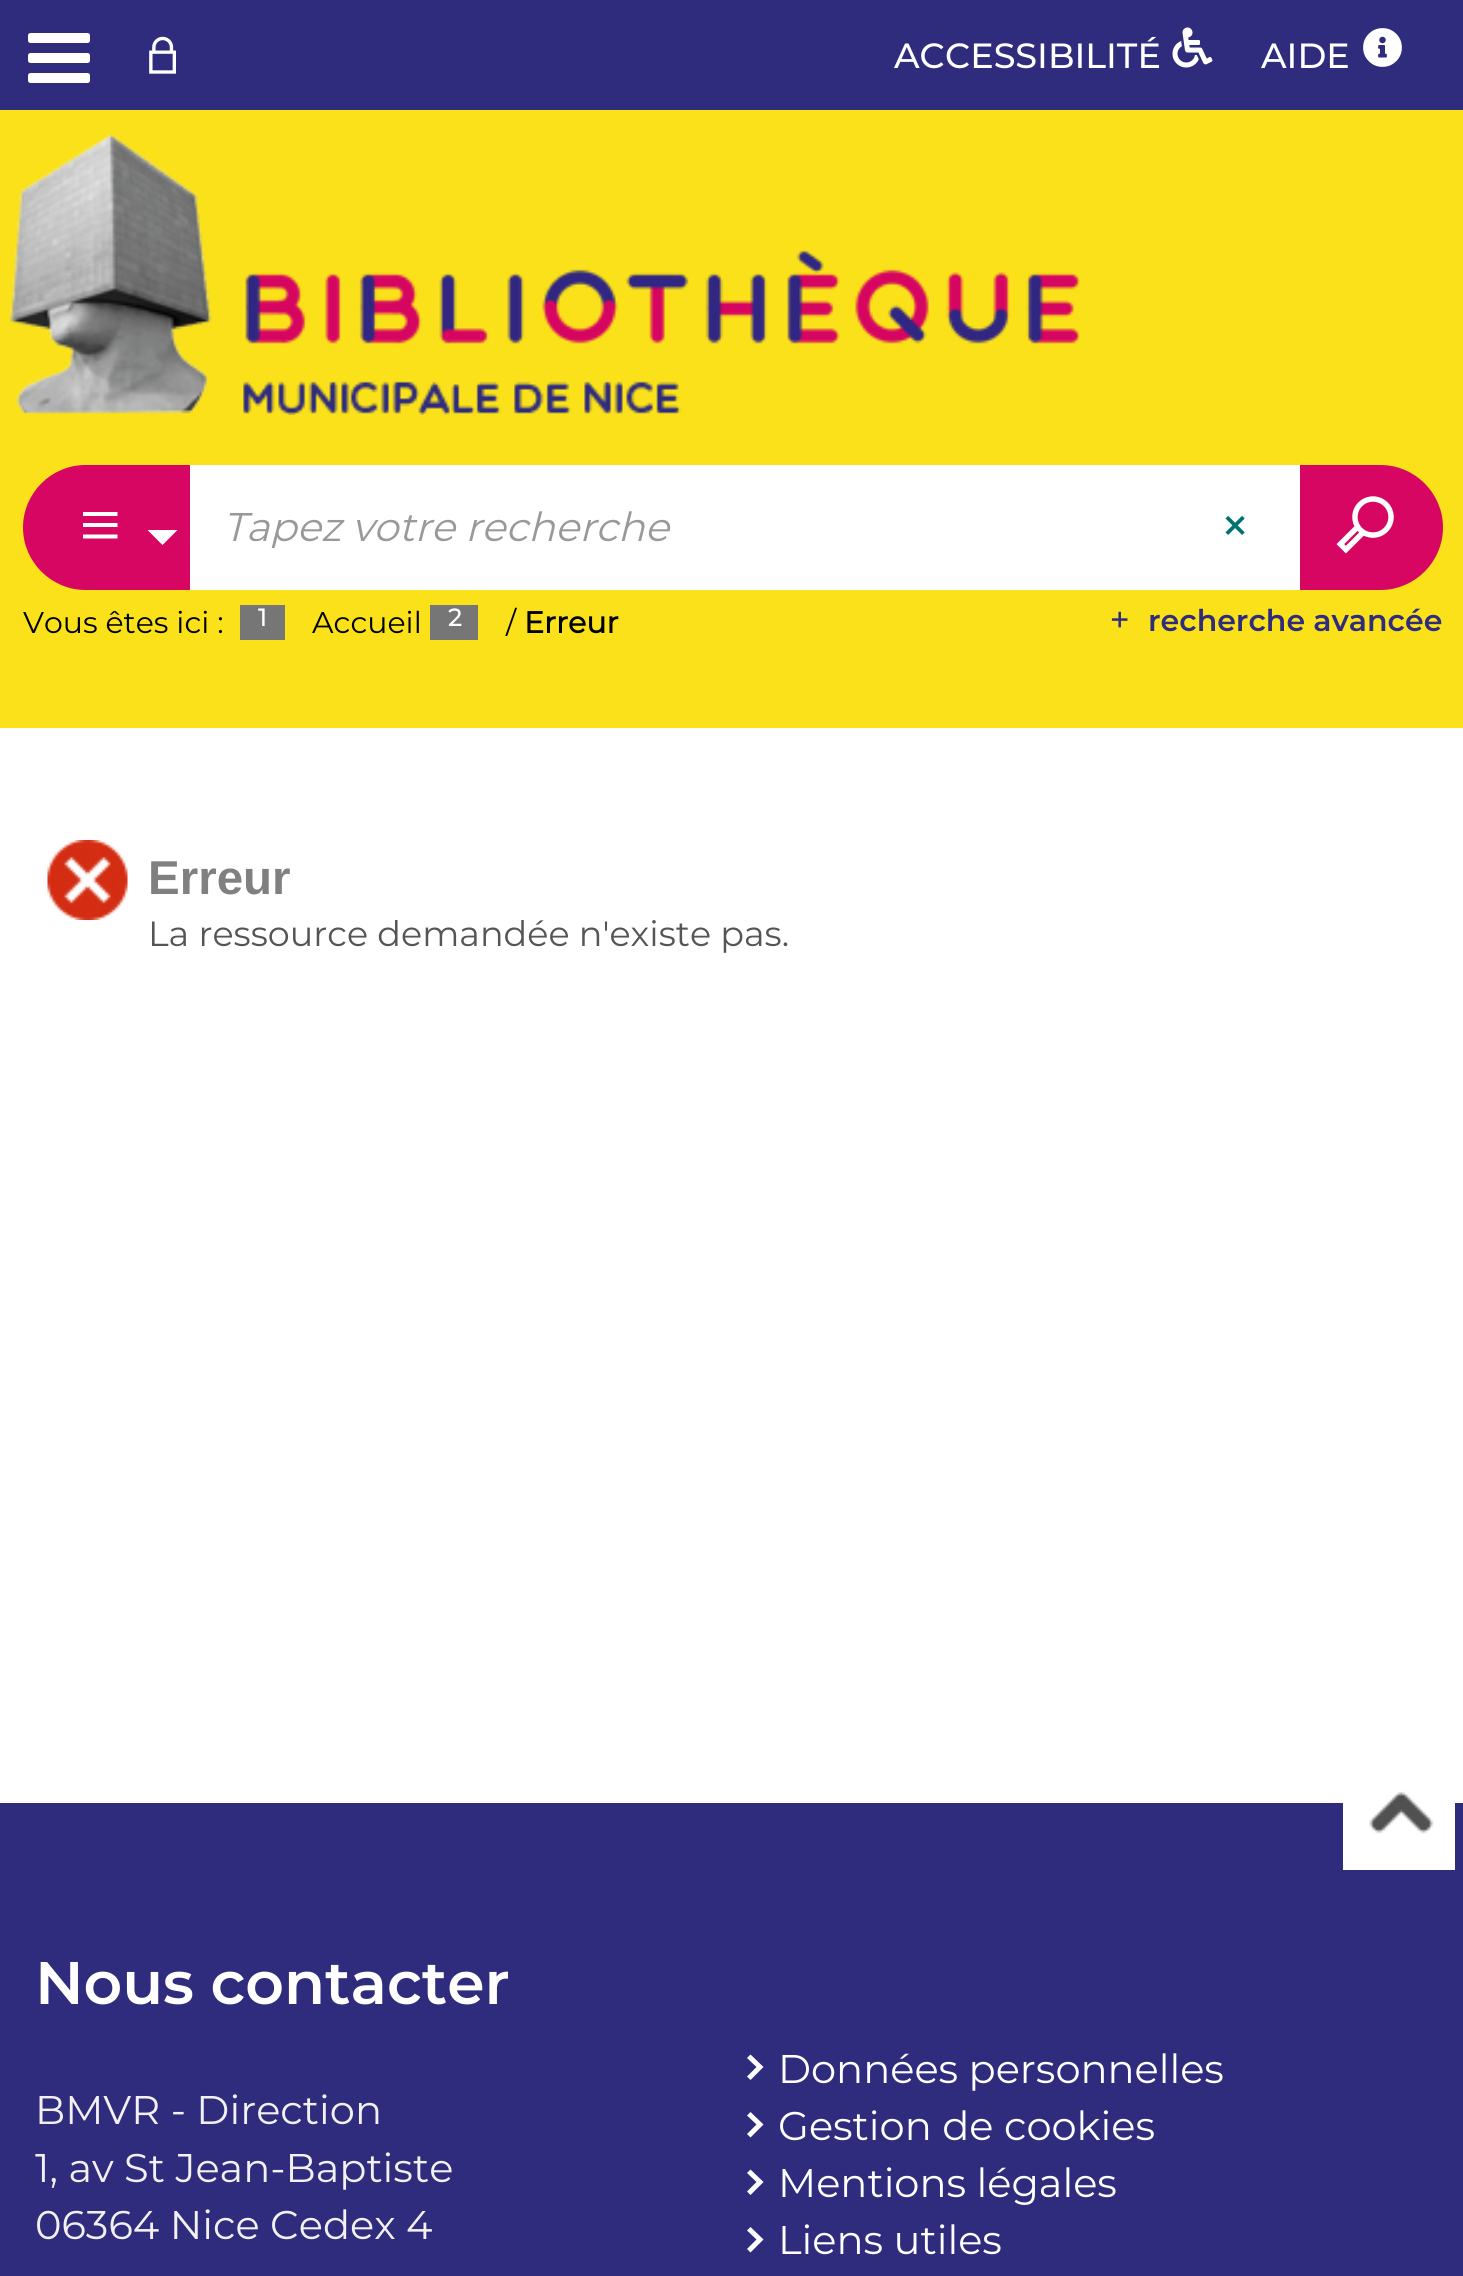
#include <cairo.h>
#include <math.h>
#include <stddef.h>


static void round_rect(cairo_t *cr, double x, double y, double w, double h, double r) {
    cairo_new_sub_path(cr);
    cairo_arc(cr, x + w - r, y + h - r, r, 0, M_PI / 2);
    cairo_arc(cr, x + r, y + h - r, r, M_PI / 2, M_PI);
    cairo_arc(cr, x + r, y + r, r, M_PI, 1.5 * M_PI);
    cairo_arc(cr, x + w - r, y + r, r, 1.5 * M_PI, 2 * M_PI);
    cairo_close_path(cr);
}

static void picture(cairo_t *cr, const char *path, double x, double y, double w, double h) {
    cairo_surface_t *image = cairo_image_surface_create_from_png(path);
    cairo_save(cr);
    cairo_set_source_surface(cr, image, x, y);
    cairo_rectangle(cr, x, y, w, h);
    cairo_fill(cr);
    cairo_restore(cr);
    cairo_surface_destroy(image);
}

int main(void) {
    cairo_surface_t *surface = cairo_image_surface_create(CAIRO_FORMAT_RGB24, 1463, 2276);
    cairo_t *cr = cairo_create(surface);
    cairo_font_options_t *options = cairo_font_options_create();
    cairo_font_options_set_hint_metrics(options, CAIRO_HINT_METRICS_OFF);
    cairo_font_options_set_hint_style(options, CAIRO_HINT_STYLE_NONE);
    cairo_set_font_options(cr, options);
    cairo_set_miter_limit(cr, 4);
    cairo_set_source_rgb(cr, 1, 1, 1);
    cairo_paint(cr);
    cairo_set_source_rgb(cr, 0.184, 0.173, 0.494);
    cairo_rectangle(cr, 0, 0, 1463, 110);
    cairo_fill(cr);
    cairo_set_source_rgb(cr, 1, 1, 1);
    round_rect(cr, 28, 33, 62, 10, 2.5);
    cairo_fill(cr);
    round_rect(cr, 28, 53, 62, 10, 2.5);
    cairo_fill(cr);
    round_rect(cr, 28, 73, 62, 10, 2.5);
    cairo_fill(cr);
    picture(cr, "img1.png", 149, 36, 27, 38);
    cairo_set_source_rgb(cr, 0.98, 0.882, 0.102);
    cairo_rectangle(cr, 0, 110, 1463, 618);
    cairo_fill(cr);
    cairo_select_font_face(cr, "Montserrat Medium", CAIRO_FONT_SLANT_NORMAL, CAIRO_FONT_WEIGHT_NORMAL);
    cairo_set_font_size(cr, 35);
    cairo_set_source_rgb(cr, 1, 1, 1);
    cairo_move_to(cr, 894, 68);
    cairo_show_text(cr, "ACCESSIBILITÉ");
    picture(cr, "img2.png", 1172, 27, 41, 41);
    cairo_move_to(cr, 1261, 68);
    cairo_show_text(cr, "AIDE");
    picture(cr, "img3.png", 1363, 28, 39, 39);
    picture(cr, "img4.png", 10, 135, 1070, 280);
    cairo_set_source_rgb(cr, 0.839, 0.027, 0.384);
    cairo_new_path(cr);
    cairo_move_to(cr, 85.5, 466.5);
    cairo_line_to(cr, 191.5, 466.5);
    cairo_line_to(cr, 191.5, 588.5);
    cairo_line_to(cr, 85.5, 588.5);
    cairo_curve_to(cr, 52, 588.5, 24.5, 561, 24.5, 527.5);
    cairo_curve_to(cr, 24.5, 494, 52, 466.5, 85.5, 466.5);
    cairo_close_path(cr);
    cairo_fill_preserve(cr);
    cairo_set_line_width(cr, 3);
    cairo_stroke(cr);
    cairo_set_source_rgb(cr, 1, 1, 1);
    cairo_new_path(cr);
    cairo_move_to(cr, 83, 512);
    cairo_line_to(cr, 117.5, 512);
    cairo_line_to(cr, 117.5, 516);
    cairo_line_to(cr, 83, 516);
    cairo_close_path(cr);
    cairo_move_to(cr, 83, 527);
    cairo_line_to(cr, 117.5, 527);
    cairo_line_to(cr, 117.5, 523);
    cairo_line_to(cr, 83, 523);
    cairo_close_path(cr);
    cairo_move_to(cr, 83, 538.5);
    cairo_line_to(cr, 117.5, 538.5);
    cairo_line_to(cr, 117.5, 534.5);
    cairo_line_to(cr, 83, 534.5);
    cairo_close_path(cr);
    cairo_fill(cr);
    cairo_new_path(cr);
    cairo_move_to(cr, 147.5, 530);
    cairo_line_to(cr, 177.5, 530);
    cairo_line_to(cr, 162.5, 545);
    cairo_close_path(cr);
    cairo_fill(cr);
    cairo_rectangle(cr, 190, 465, 1110, 125);
    cairo_fill(cr);
    cairo_save(cr);
    cairo_rectangle(cr, 223, 508, 927, 40);
    cairo_clip(cr);
    cairo_select_font_face(cr, "Montserrat", CAIRO_FONT_SLANT_ITALIC, CAIRO_FONT_WEIGHT_NORMAL);
    cairo_set_font_size(cr, 40);
    cairo_set_source_rgb(cr, 0.6, 0.6, 0.6);
    cairo_move_to(cr, 223, 541);
    cairo_show_text(cr, "Tapez votre recherche");
    cairo_restore(cr);
    picture(cr, "img5.png", 1225, 515, 20, 20);
    cairo_set_source_rgb(cr, 0.839, 0.027, 0.384);
    cairo_new_path(cr);
    cairo_move_to(cr, 1301.5, 466.5);
    cairo_line_to(cr, 1380.5, 466.5);
    cairo_curve_to(cr, 1414, 466.5, 1441.5, 494, 1441.5, 527.5);
    cairo_curve_to(cr, 1441.5, 561, 1414, 588.5, 1380.5, 588.5);
    cairo_line_to(cr, 1301.5, 588.5);
    cairo_close_path(cr);
    cairo_fill_preserve(cr);
    cairo_stroke(cr);
    picture(cr, "img6.png", 1336, 496, 58, 58);
    picture(cr, "img7.png", 1111, 611, 17, 17);
    cairo_select_font_face(cr, "Montserrat SemiBold", CAIRO_FONT_SLANT_NORMAL, CAIRO_FONT_WEIGHT_NORMAL);
    cairo_set_font_size(cr, 30);
    cairo_set_source_rgb(cr, 0.184, 0.173, 0.494);
    cairo_move_to(cr, 1148, 631);
    cairo_show_text(cr, "recherche avancée");
    cairo_select_font_face(cr, "Montserrat", CAIRO_FONT_SLANT_NORMAL, CAIRO_FONT_WEIGHT_NORMAL);
    cairo_set_source_rgb(cr, 0, 0, 0);
    cairo_move_to(cr, 23, 633);
    cairo_show_text(cr, "Vous êtes ici :");
    cairo_set_source_rgb(cr, 0.463, 0.463, 0.463);
    cairo_rectangle(cr, 240, 605, 45, 35);
    cairo_fill(cr);
    cairo_select_font_face(cr, "Montserrat", CAIRO_FONT_SLANT_NORMAL, CAIRO_FONT_WEIGHT_BOLD);
    cairo_set_font_size(cr, 24);
    cairo_set_source_rgb(cr, 1, 1, 1);
    cairo_move_to(cr, 258, 626);
    cairo_show_text(cr, "1");
    cairo_select_font_face(cr, "Montserrat", CAIRO_FONT_SLANT_NORMAL, CAIRO_FONT_WEIGHT_NORMAL);
    cairo_set_font_size(cr, 30);
    cairo_set_source_rgb(cr, 0, 0, 0);
    cairo_move_to(cr, 312, 633);
    cairo_show_text(cr, "Accueil");
    cairo_set_source_rgb(cr, 0.463, 0.463, 0.463);
    cairo_rectangle(cr, 430, 605, 48, 35);
    cairo_fill(cr);
    cairo_select_font_face(cr, "Montserrat", CAIRO_FONT_SLANT_NORMAL, CAIRO_FONT_WEIGHT_BOLD);
    cairo_set_font_size(cr, 24);
    cairo_set_source_rgb(cr, 1, 1, 1);
    cairo_move_to(cr, 448, 626);
    cairo_show_text(cr, "2");
    cairo_select_font_face(cr, "Montserrat", CAIRO_FONT_SLANT_NORMAL, CAIRO_FONT_WEIGHT_NORMAL);
    cairo_set_font_size(cr, 30);
    cairo_set_source_rgb(cr, 0, 0, 0);
    cairo_move_to(cr, 506, 633);
    cairo_show_text(cr, "/");
    cairo_select_font_face(cr, "Montserrat", CAIRO_FONT_SLANT_NORMAL, CAIRO_FONT_WEIGHT_BOLD);
    cairo_move_to(cr, 524, 633);
    cairo_show_text(cr, "Erreur");
    picture(cr, "img8.png", 47, 840, 81, 80);
    cairo_select_font_face(cr, "Liberation Sans", CAIRO_FONT_SLANT_NORMAL, CAIRO_FONT_WEIGHT_BOLD);
    cairo_set_font_size(cr, 47.5);
    cairo_set_source_rgb(cr, 0.502, 0.502, 0.502);
    cairo_move_to(cr, 148, 894);
    cairo_show_text(cr, "Erreur");
    cairo_select_font_face(cr, "Montserrat", CAIRO_FONT_SLANT_NORMAL, CAIRO_FONT_WEIGHT_NORMAL);
    cairo_set_font_size(cr, 35);
    cairo_set_source_rgb(cr, 0.333, 0.333, 0.333);
    cairo_move_to(cr, 148, 946);
    cairo_show_text(cr, "La ressource demandée n'existe pas.");
    cairo_set_source_rgb(cr, 0.184, 0.173, 0.494);
    cairo_rectangle(cr, 0, 1803, 1463, 473);
    cairo_fill(cr);
    cairo_set_source_rgb(cr, 1, 1, 1);
    cairo_rectangle(cr, 1343, 1803, 112, 67);
    cairo_fill(cr);
    picture(cr, "img9.png", 1369, 1791, 65, 43);
    cairo_select_font_face(cr, "Montserrat SemiBold", CAIRO_FONT_SLANT_NORMAL, CAIRO_FONT_WEIGHT_NORMAL);
    cairo_set_font_size(cr, 60);
    cairo_move_to(cr, 35, 2004);
    cairo_show_text(cr, "Nous contacter");
    cairo_select_font_face(cr, "Montserrat", CAIRO_FONT_SLANT_NORMAL, CAIRO_FONT_WEIGHT_NORMAL);
    cairo_set_font_size(cr, 40);
    cairo_set_source_rgb(cr, 0.949, 0.941, 0.945);
    cairo_move_to(cr, 35, 2124);
    cairo_show_text(cr, "BMVR - Direction");
    cairo_move_to(cr, 35, 2182);
    cairo_show_text(cr, "1, av St Jean-Baptiste");
    cairo_move_to(cr, 35, 2239);
    cairo_show_text(cr, "06364 Nice Cedex 4");
    cairo_set_source_rgb(cr, 1, 1, 1);
    cairo_new_path(cr);
    cairo_move_to(cr, 763.5, 2067);
    cairo_line_to(cr, 750.5, 2080);
    cairo_line_to(cr, 747, 2076.5);
    cairo_line_to(cr, 756.5, 2067);
    cairo_line_to(cr, 747, 2058);
    cairo_line_to(cr, 750.5, 2054.5);
    cairo_close_path(cr);
    cairo_fill(cr);
    cairo_move_to(cr, 778, 2083);
    cairo_show_text(cr, "Données personnelles");
    cairo_new_path(cr);
    cairo_move_to(cr, 763.5, 2124.5);
    cairo_line_to(cr, 750.5, 2137.5);
    cairo_line_to(cr, 747, 2134);
    cairo_line_to(cr, 756.5, 2124.5);
    cairo_line_to(cr, 747, 2115.5);
    cairo_line_to(cr, 750.5, 2112);
    cairo_close_path(cr);
    cairo_fill(cr);
    cairo_move_to(cr, 778, 2140);
    cairo_show_text(cr, "Gestion de cookies");
    cairo_new_path(cr);
    cairo_move_to(cr, 763.5, 2182);
    cairo_line_to(cr, 750.5, 2195);
    cairo_line_to(cr, 747, 2191.5);
    cairo_line_to(cr, 756.5, 2182);
    cairo_line_to(cr, 747, 2173);
    cairo_line_to(cr, 750.5, 2169.5);
    cairo_close_path(cr);
    cairo_fill(cr);
    cairo_move_to(cr, 778, 2197);
    cairo_show_text(cr, "Mentions légales");
    cairo_new_path(cr);
    cairo_move_to(cr, 763.5, 2239.5);
    cairo_line_to(cr, 750.5, 2252.5);
    cairo_line_to(cr, 747, 2249);
    cairo_line_to(cr, 756.5, 2239.5);
    cairo_line_to(cr, 747, 2230.5);
    cairo_line_to(cr, 750.5, 2227);
    cairo_close_path(cr);
    cairo_fill(cr);
    cairo_move_to(cr, 778, 2254);
    cairo_show_text(cr, "Liens utiles");
    cairo_surface_write_to_png(surface, "page.png");
    cairo_font_options_destroy(options);
    cairo_destroy(cr);
    cairo_surface_destroy(surface);
    return 0;
}
